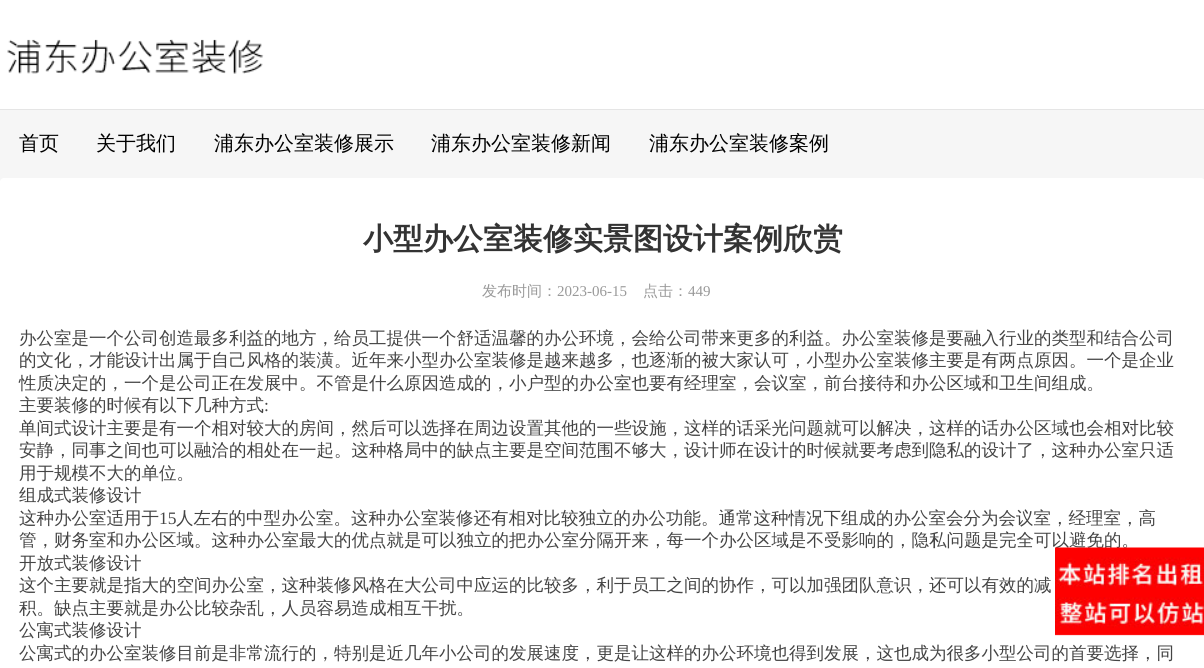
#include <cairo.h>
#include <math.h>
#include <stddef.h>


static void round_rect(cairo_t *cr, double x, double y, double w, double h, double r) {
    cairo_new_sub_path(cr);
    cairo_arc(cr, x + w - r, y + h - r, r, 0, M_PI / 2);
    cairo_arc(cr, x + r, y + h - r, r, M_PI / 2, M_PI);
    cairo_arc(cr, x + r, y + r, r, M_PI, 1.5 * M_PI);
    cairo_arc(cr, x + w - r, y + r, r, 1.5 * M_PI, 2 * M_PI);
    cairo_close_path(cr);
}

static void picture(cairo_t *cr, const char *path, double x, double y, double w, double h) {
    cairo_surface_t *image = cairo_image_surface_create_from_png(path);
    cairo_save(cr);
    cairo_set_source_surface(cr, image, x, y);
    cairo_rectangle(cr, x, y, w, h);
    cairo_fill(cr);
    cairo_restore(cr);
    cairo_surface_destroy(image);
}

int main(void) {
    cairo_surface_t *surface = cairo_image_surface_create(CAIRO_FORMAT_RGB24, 1204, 668);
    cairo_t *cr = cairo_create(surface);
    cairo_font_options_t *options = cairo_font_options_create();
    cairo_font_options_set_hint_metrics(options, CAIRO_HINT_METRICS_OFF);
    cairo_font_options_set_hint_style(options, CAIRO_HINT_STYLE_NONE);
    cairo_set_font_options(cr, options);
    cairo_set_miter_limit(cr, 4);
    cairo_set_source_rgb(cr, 0.961, 0.961, 0.961);
    cairo_paint(cr);
    cairo_set_source_rgb(cr, 1, 1, 1);
    cairo_rectangle(cr, 0, 0, 1204, 109);
    cairo_fill(cr);
    cairo_set_source_rgb(cr, 0.898, 0.898, 0.898);
    cairo_rectangle(cr, 0, 109, 1204, 1);
    cairo_fill(cr);
    picture(cr, "img1.png", 7, 39, 257, 35);
    cairo_select_font_face(cr, "WenQuanYi Zen Hei Medium", CAIRO_FONT_SLANT_NORMAL, CAIRO_FONT_WEIGHT_NORMAL);
    cairo_set_font_size(cr, 20);
    cairo_set_source_rgb(cr, 0, 0, 0);
    cairo_move_to(cr, 19, 150);
    cairo_show_text(cr, "首页");
    cairo_move_to(cr, 96, 150);
    cairo_show_text(cr, "关于我们");
    cairo_move_to(cr, 214, 150);
    cairo_show_text(cr, "浦东办公室装修展示");
    cairo_move_to(cr, 431, 150);
    cairo_show_text(cr, "浦东办公室装修新闻");
    cairo_move_to(cr, 649, 150);
    cairo_show_text(cr, "浦东办公室装修案例");
    cairo_set_source_rgb(cr, 1, 1, 1);
    round_rect(cr, 0, 178, 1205, 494, 4);
    cairo_fill(cr);
    cairo_select_font_face(cr, "WenQuanYi Zen Hei", CAIRO_FONT_SLANT_NORMAL, CAIRO_FONT_WEIGHT_BOLD);
    cairo_set_font_size(cr, 30);
    cairo_set_source_rgb(cr, 0.2, 0.2, 0.2);
    cairo_move_to(cr, 363, 249);
    cairo_show_text(cr, "小型办公室装修实景图设计案例欣赏");
    cairo_select_font_face(cr, "WenQuanYi Zen Hei Medium", CAIRO_FONT_SLANT_NORMAL, CAIRO_FONT_WEIGHT_NORMAL);
    cairo_set_font_size(cr, 15);
    cairo_set_source_rgb(cr, 0.6, 0.6, 0.6);
    cairo_move_to(cr, 482, 296);
    cairo_show_text(cr, "发布时间：");
    cairo_select_font_face(cr, "Liberation Serif", CAIRO_FONT_SLANT_NORMAL, CAIRO_FONT_WEIGHT_NORMAL);
    cairo_move_to(cr, 557, 296);
    cairo_show_text(cr, "2023-06-15");
    cairo_select_font_face(cr, "WenQuanYi Zen Hei Medium", CAIRO_FONT_SLANT_NORMAL, CAIRO_FONT_WEIGHT_NORMAL);
    cairo_move_to(cr, 643, 296);
    cairo_show_text(cr, "点击：");
    cairo_select_font_face(cr, "Liberation Serif", CAIRO_FONT_SLANT_NORMAL, CAIRO_FONT_WEIGHT_NORMAL);
    cairo_move_to(cr, 688, 296);
    cairo_show_text(cr, "449");
    cairo_select_font_face(cr, "WenQuanYi Zen Hei Medium", CAIRO_FONT_SLANT_NORMAL, CAIRO_FONT_WEIGHT_NORMAL);
    cairo_set_font_size(cr, 17.5);
    cairo_set_source_rgb(cr, 0.267, 0.267, 0.267);
    cairo_move_to(cr, 19, 344);
    cairo_show_text(cr, "办公室是一个公司创造最多利益的地方，给员工提供一个舒适温馨的办公环境，会给公司带来更多的利益。办公室装修是要融入行业的类型和结合公司");
    cairo_move_to(cr, 19, 366);
    cairo_show_text(cr, "的文化，才能设计出属于自己风格的装潢。近年来小型办公室装修是越来越多，也逐渐的被大家认可，小型办公室装修主要是有两点原因。一个是企业");
    cairo_move_to(cr, 19, 389);
    cairo_show_text(cr, "性质决定的，一个是公司正在发展中。不管是什么原因造成的，小户型的办公室也要有经理室，会议室，前台接待和办公区域和卫生间组成。");
    cairo_move_to(cr, 19, 411);
    cairo_show_text(cr, "主要装修的时候有以下几种方式");
    cairo_select_font_face(cr, "Liberation Serif", CAIRO_FONT_SLANT_NORMAL, CAIRO_FONT_WEIGHT_NORMAL);
    cairo_move_to(cr, 264, 411);
    cairo_show_text(cr, ":");
    cairo_select_font_face(cr, "WenQuanYi Zen Hei Medium", CAIRO_FONT_SLANT_NORMAL, CAIRO_FONT_WEIGHT_NORMAL);
    cairo_move_to(cr, 19, 434);
    cairo_show_text(cr, "单间式设计主要是有一个相对较大的房间，然后可以选择在周边设置其他的一些设施，这样的话采光问题就可以解决，这样的话办公区域也会相对比较");
    cairo_move_to(cr, 19, 456);
    cairo_show_text(cr, "安静，同事之间也可以融洽的相处在一起。这种格局中的缺点主要是空间范围不够大，设计师在设计的时候就要考虑到隐私的设计了，这种办公室只适");
    cairo_move_to(cr, 19, 479);
    cairo_show_text(cr, "用于规模不大的单位。");
    cairo_move_to(cr, 19, 501);
    cairo_show_text(cr, "组成式装修设计");
    cairo_move_to(cr, 19, 524);
    cairo_show_text(cr, "这种办公室适用于");
    cairo_select_font_face(cr, "Liberation Serif", CAIRO_FONT_SLANT_NORMAL, CAIRO_FONT_WEIGHT_NORMAL);
    cairo_move_to(cr, 159, 524);
    cairo_show_text(cr, "15");
    cairo_select_font_face(cr, "WenQuanYi Zen Hei Medium", CAIRO_FONT_SLANT_NORMAL, CAIRO_FONT_WEIGHT_NORMAL);
    cairo_move_to(cr, 176, 524);
    cairo_show_text(cr, "人左右的中型办公室。这种办公室装修还有相对比较独立的办公功能。通常这种情况下组成的办公室会分为会议室，经理室，高");
    cairo_move_to(cr, 19, 546);
    cairo_show_text(cr, "管，财务室和办公区域。这种办公室最大的优点就是可以独立的把办公室分隔开来，每一个办公区域是不受影响的，隐私问题是完全可以避免的。");
    cairo_move_to(cr, 19, 569);
    cairo_show_text(cr, "开放式装修设计");
    cairo_move_to(cr, 19, 591);
    cairo_show_text(cr, "这个主要就是指大的空间办公室，这种装修风格在大公司中应运的比较多，利于员工之间的协作，可以加强团队意识，还可以有效的减");
    cairo_move_to(cr, 19, 614);
    cairo_show_text(cr, "积。缺点主要就是办公比较杂乱，人员容易造成相互干扰。");
    cairo_move_to(cr, 19, 636);
    cairo_show_text(cr, "公寓式装修设计");
    cairo_move_to(cr, 19, 659);
    cairo_show_text(cr, "公寓式的办公室装修目前是非常流行的，特别是近几年小公司的发展速度，更是让这样的办公环境也得到发展，这也成为很多小型公司的首要选择，同");
    picture(cr, "img2.png", 1055, 547, 149, 89);
    cairo_surface_write_to_png(surface, "page.png");
    cairo_font_options_destroy(options);
    cairo_destroy(cr);
    cairo_surface_destroy(surface);
    return 0;
}
